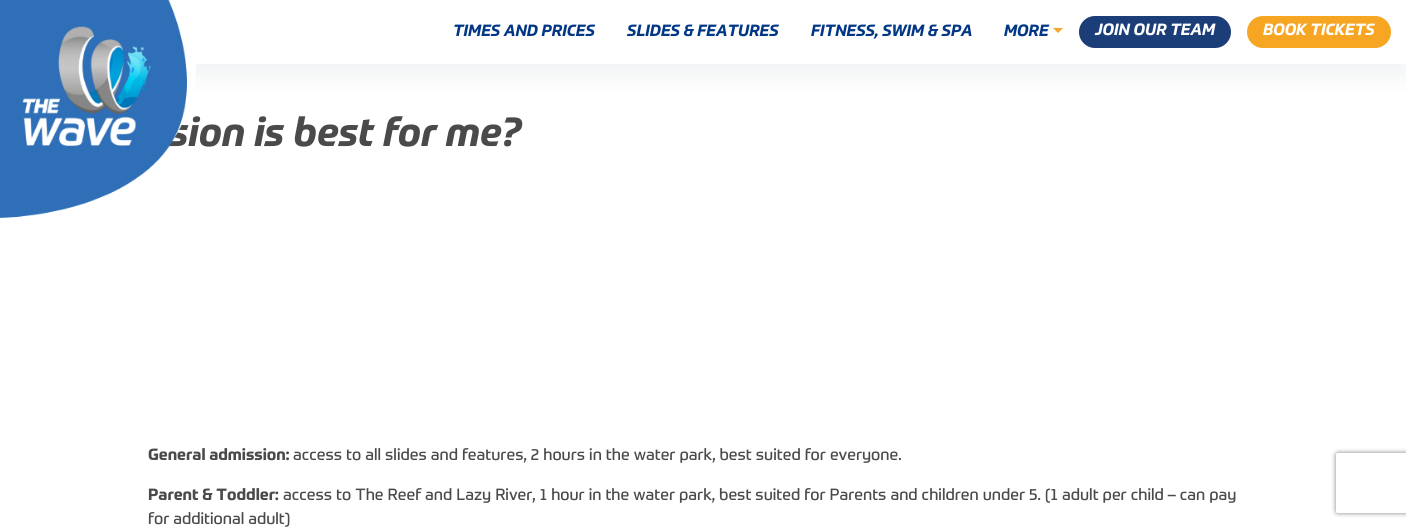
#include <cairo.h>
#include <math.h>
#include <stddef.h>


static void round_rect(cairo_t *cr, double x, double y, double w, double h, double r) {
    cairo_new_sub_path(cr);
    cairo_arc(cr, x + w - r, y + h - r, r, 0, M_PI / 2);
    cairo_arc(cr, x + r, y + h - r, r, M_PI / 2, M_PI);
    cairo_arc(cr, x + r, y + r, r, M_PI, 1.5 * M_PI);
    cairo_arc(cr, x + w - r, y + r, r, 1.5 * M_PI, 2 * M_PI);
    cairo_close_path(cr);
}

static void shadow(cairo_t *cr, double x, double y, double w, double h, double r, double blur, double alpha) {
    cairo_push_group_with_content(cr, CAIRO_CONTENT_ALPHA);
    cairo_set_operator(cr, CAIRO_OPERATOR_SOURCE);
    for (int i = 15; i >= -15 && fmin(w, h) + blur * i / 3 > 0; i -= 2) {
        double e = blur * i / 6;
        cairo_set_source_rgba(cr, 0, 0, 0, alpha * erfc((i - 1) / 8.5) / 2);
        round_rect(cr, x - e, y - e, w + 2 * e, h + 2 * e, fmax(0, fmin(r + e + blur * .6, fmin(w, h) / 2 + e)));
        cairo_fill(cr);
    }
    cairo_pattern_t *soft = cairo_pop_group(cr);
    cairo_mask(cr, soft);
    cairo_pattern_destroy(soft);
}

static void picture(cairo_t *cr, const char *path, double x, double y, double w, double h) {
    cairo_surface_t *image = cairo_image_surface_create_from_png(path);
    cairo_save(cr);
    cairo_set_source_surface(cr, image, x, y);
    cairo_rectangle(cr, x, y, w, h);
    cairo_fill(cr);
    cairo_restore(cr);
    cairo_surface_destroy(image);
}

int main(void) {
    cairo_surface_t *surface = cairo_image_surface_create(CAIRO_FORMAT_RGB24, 1406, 527);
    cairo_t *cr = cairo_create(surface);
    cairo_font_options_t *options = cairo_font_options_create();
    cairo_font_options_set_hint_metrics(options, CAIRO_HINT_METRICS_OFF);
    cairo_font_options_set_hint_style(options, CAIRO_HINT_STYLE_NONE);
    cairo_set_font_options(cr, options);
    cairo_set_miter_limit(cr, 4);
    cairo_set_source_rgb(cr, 1, 1, 1);
    cairo_paint(cr);
    cairo_save(cr);
    cairo_rectangle(cr, 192, 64, 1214, 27);
    cairo_clip(cr);
    cairo_set_source_rgb(cr, 0.541, 0.608, 0.647);
    shadow(cr, 0, 10, 1406, 64, 0, 15, 0.15);
    cairo_restore(cr);
    cairo_select_font_face(cr, "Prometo", CAIRO_FONT_SLANT_ITALIC, CAIRO_FONT_WEIGHT_BOLD);
    cairo_set_font_size(cr, 40);
    cairo_set_source_rgb(cr, 0.29, 0.29, 0.29);
    cairo_move_to(cr, 169, 146);
    cairo_show_text(cr, "sion is best for me?");
    picture(cr, "img1.png", 0, 0, 196, 218);
    cairo_set_font_size(cr, 16);
    cairo_set_source_rgb(cr, 0.004, 0.216, 0.522);
    cairo_move_to(cr, 453, 36);
    cairo_show_text(cr, "TIMES AND PRICES");
    cairo_move_to(cr, 627, 36);
    cairo_show_text(cr, "SLIDES & FEATURES");
    cairo_move_to(cr, 811, 36);
    cairo_show_text(cr, "FITNESS, SWIM & SPA");
    cairo_move_to(cr, 1004, 36);
    cairo_show_text(cr, "MORE");
    cairo_set_source_rgb(cr, 0.961, 0.655, 0.141);
    cairo_new_path(cr);
    cairo_move_to(cr, 1053, 28);
    cairo_line_to(cr, 1063, 28);
    cairo_line_to(cr, 1058, 33);
    cairo_close_path(cr);
    cairo_fill(cr);
    cairo_set_source_rgb(cr, 0.106, 0.243, 0.475);
    round_rect(cr, 1079, 16, 152, 32, 16);
    cairo_fill(cr);
    cairo_set_source_rgb(cr, 1, 1, 1);
    cairo_move_to(cr, 1095, 35);
    cairo_show_text(cr, "JOIN OUR TEAM");
    cairo_set_source_rgb(cr, 0.961, 0.651, 0.137);
    round_rect(cr, 1247, 16, 144, 32, 16);
    cairo_fill(cr);
    cairo_set_source_rgb(cr, 1, 1, 1);
    cairo_move_to(cr, 1263, 35);
    cairo_show_text(cr, "BOOK TICKETS");
    cairo_select_font_face(cr, "Prometo", CAIRO_FONT_SLANT_NORMAL, CAIRO_FONT_WEIGHT_BOLD);
    cairo_set_source_rgb(cr, 0.29, 0.29, 0.29);
    cairo_move_to(cr, 148, 460);
    cairo_show_text(cr, "General admission:");
    cairo_select_font_face(cr, "Prometo", CAIRO_FONT_SLANT_NORMAL, CAIRO_FONT_WEIGHT_NORMAL);
    cairo_move_to(cr, 293, 460);
    cairo_show_text(cr, "access to all slides and features, 2 hours in the water park, best suited for everyone.");
    cairo_select_font_face(cr, "Prometo", CAIRO_FONT_SLANT_NORMAL, CAIRO_FONT_WEIGHT_BOLD);
    cairo_move_to(cr, 148, 500);
    cairo_show_text(cr, "Parent & Toddler:");
    cairo_select_font_face(cr, "Prometo", CAIRO_FONT_SLANT_NORMAL, CAIRO_FONT_WEIGHT_NORMAL);
    cairo_move_to(cr, 283, 500);
    cairo_show_text(cr, "access to The Reef and Lazy River, 1 hour in the water park, best suited for Parents and children under 5. (1 adult per child – can pay");
    cairo_move_to(cr, 148, 524);
    cairo_show_text(cr, "for additional adult)");
    cairo_save(cr);
    cairo_set_fill_rule(cr, CAIRO_FILL_RULE_EVEN_ODD);
    cairo_new_path(cr);
    cairo_move_to(cr, 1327, 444);
    cairo_line_to(cr, 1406, 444);
    cairo_line_to(cr, 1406, 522);
    cairo_line_to(cr, 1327, 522);
    cairo_close_path(cr);
    cairo_move_to(cr, 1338, 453);
    cairo_line_to(cr, 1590, 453);
    cairo_curve_to(cr, 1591, 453, 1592, 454, 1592, 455);
    cairo_line_to(cr, 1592, 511);
    cairo_curve_to(cr, 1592, 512, 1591, 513, 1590, 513);
    cairo_line_to(cr, 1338, 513);
    cairo_curve_to(cr, 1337, 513, 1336, 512, 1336, 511);
    cairo_line_to(cr, 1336, 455);
    cairo_curve_to(cr, 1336, 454, 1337, 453, 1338, 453);
    cairo_close_path(cr);
    cairo_clip(cr);
    cairo_set_source_rgb(cr, 0.502, 0.502, 0.502);
    shadow(cr, 1336, 453, 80, 60, 2, 2.5, 1);
    cairo_restore(cr);
    cairo_surface_write_to_png(surface, "page.png");
    cairo_font_options_destroy(options);
    cairo_destroy(cr);
    cairo_surface_destroy(surface);
    return 0;
}
